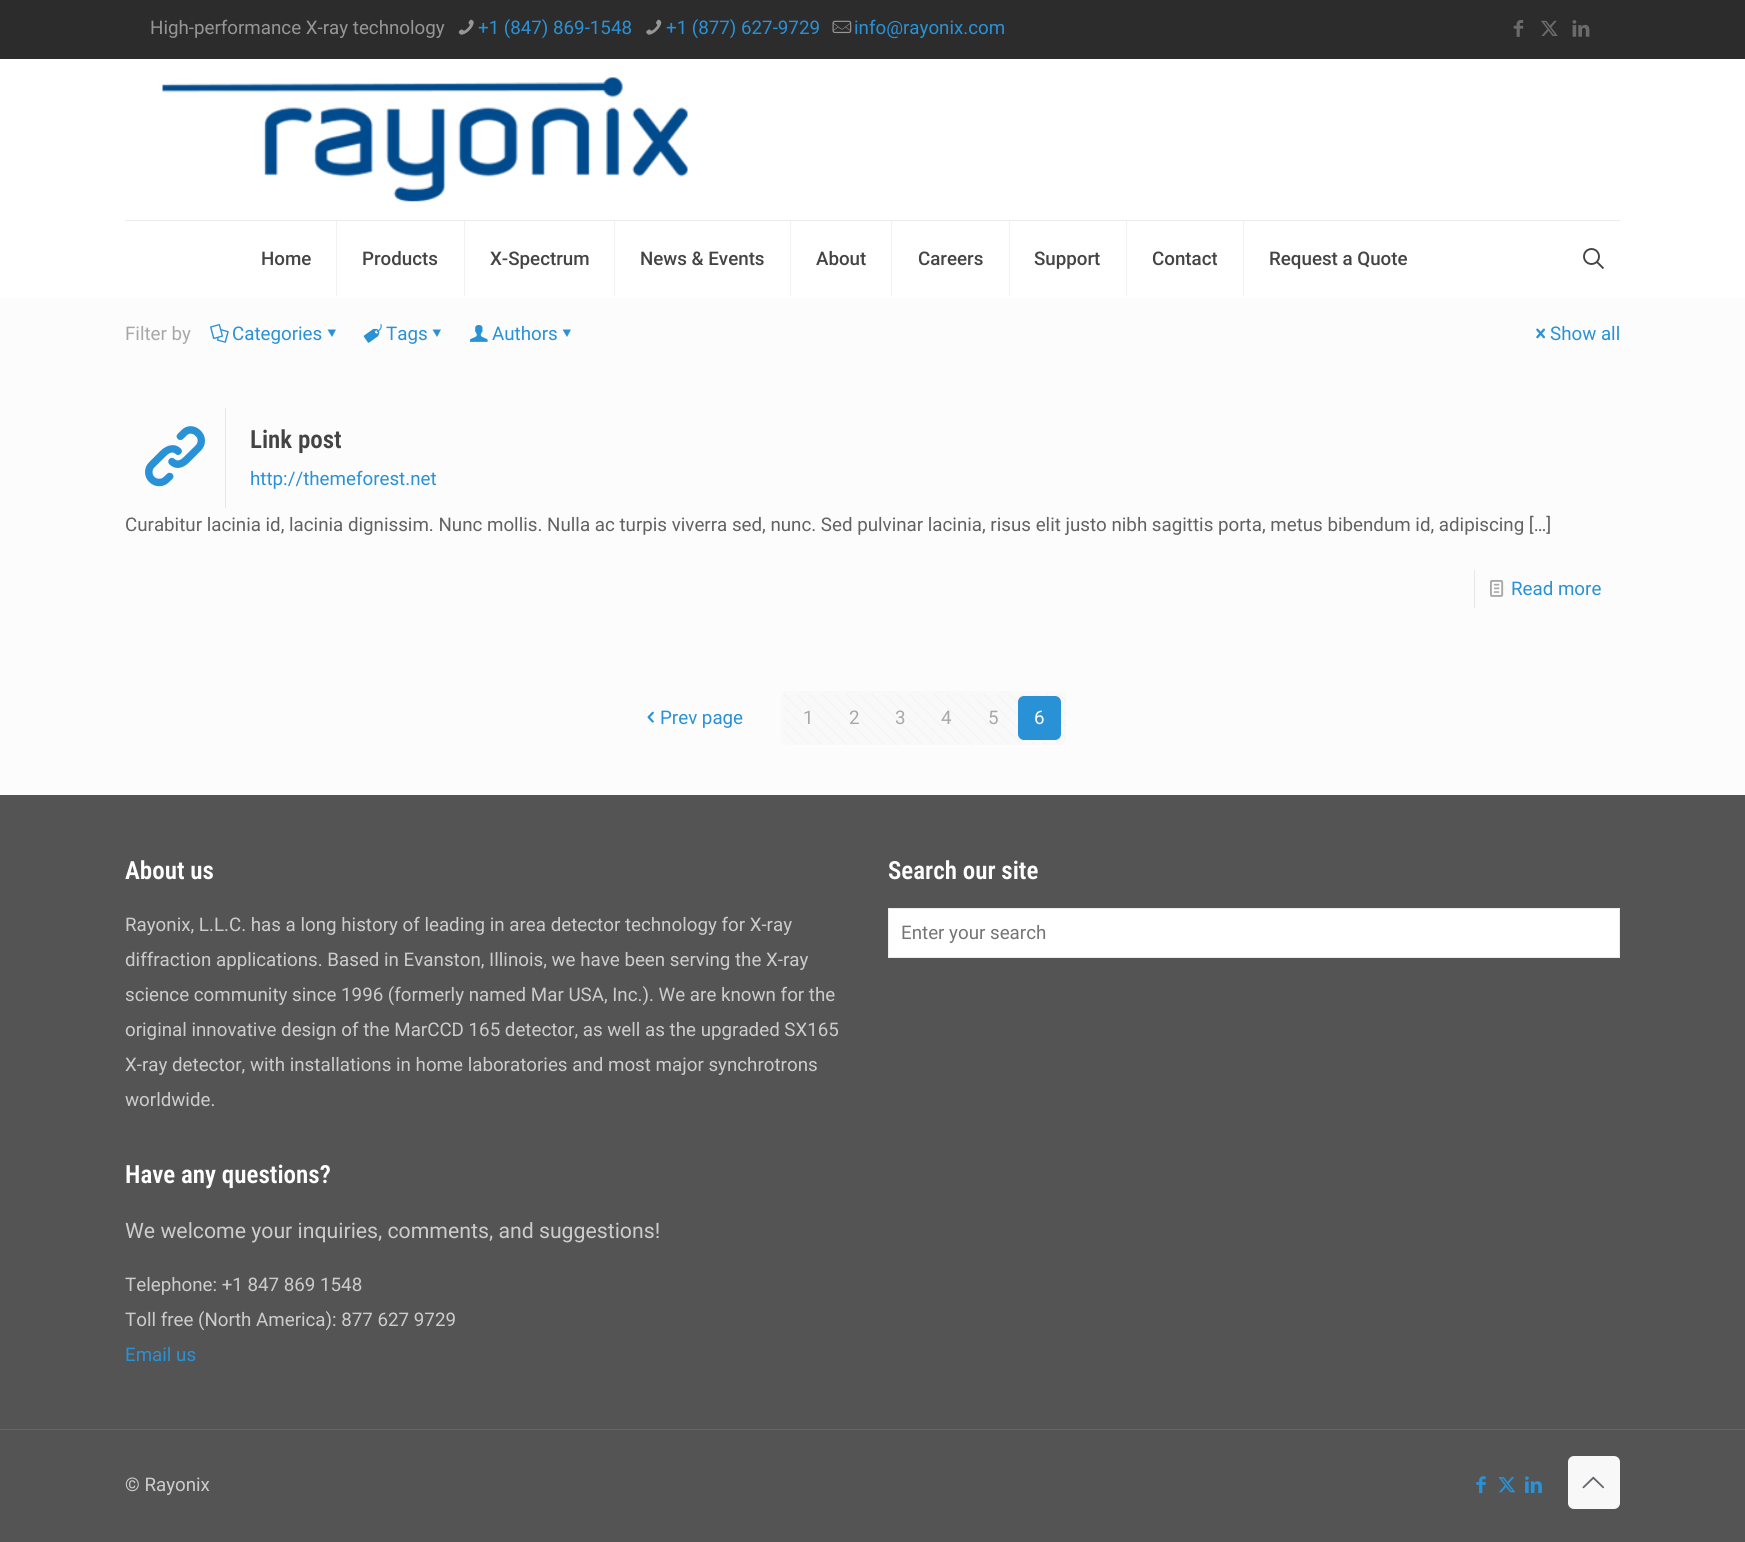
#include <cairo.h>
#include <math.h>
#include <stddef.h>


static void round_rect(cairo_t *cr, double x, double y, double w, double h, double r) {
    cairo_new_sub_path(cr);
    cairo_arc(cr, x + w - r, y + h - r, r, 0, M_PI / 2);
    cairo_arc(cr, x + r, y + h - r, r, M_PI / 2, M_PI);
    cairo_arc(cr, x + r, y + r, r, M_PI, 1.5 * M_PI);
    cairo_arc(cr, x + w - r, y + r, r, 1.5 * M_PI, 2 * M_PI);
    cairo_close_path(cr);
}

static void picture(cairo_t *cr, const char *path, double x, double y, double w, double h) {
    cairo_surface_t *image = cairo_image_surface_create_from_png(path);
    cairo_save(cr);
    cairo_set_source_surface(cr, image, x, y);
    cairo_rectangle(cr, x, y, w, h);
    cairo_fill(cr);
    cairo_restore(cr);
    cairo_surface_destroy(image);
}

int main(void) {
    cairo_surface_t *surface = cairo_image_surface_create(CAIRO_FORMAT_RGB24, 1745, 1542);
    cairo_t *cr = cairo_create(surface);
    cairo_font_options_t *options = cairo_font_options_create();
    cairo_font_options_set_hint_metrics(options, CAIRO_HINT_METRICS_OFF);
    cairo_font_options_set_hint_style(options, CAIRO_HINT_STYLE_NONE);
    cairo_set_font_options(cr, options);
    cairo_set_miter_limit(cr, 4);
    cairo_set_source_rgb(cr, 0.988, 0.988, 0.988);
    cairo_paint(cr);
    cairo_set_source_rgb(cr, 0.173, 0.173, 0.173);
    cairo_rectangle(cr, 0, 0, 1745, 59);
    cairo_fill(cr);
    cairo_select_font_face(cr, "Roboto", CAIRO_FONT_SLANT_NORMAL, CAIRO_FONT_WEIGHT_NORMAL);
    cairo_set_font_size(cr, 18.75);
    cairo_set_source_rgb(cr, 0.588, 0.588, 0.588);
    cairo_move_to(cr, 150, 34);
    cairo_show_text(cr, "High-performance X-ray technology");
    picture(cr, "img1.png", 458, 19, 16, 16);
    cairo_set_source_rgb(cr, 0.161, 0.569, 0.839);
    cairo_move_to(cr, 478, 34);
    cairo_show_text(cr, "+1 (847) 869-1548");
    picture(cr, "img2.png", 646, 19, 16, 16);
    cairo_move_to(cr, 666, 34);
    cairo_show_text(cr, "+1 (877) 627-9729");
    picture(cr, "img3.png", 832, 20, 20, 14);
    cairo_move_to(cr, 854, 34);
    cairo_show_text(cr, "info@rayonix.com");
    picture(cr, "img4.png", 1513, 20, 11, 17);
    picture(cr, "img5.png", 1541, 20, 17, 16);
    picture(cr, "img6.png", 1572, 20, 18, 17);
    cairo_set_source_rgb(cr, 1, 1, 1);
    cairo_rectangle(cr, 0, 59, 1745, 239);
    cairo_fill(cr);
    cairo_set_source_rgb(cr, 0.922, 0.922, 0.922);
    cairo_rectangle(cr, 125, 220, 1495, 1);
    cairo_fill(cr);
    picture(cr, "img7.png", 162, 77, 526, 125);
    cairo_set_source_rgb(cr, 0.949, 0.949, 0.949);
    cairo_rectangle(cr, 336, 221, 1, 75);
    cairo_fill(cr);
    cairo_select_font_face(cr, "Roboto Medium", CAIRO_FONT_SLANT_NORMAL, CAIRO_FONT_WEIGHT_NORMAL);
    cairo_set_source_rgb(cr, 0.267, 0.267, 0.267);
    cairo_move_to(cr, 261, 265);
    cairo_show_text(cr, "Home");
    cairo_set_source_rgb(cr, 0.949, 0.949, 0.949);
    cairo_rectangle(cr, 464, 221, 1, 75);
    cairo_fill(cr);
    cairo_set_source_rgb(cr, 0.267, 0.267, 0.267);
    cairo_move_to(cr, 362, 265);
    cairo_show_text(cr, "Products");
    cairo_set_source_rgb(cr, 0.949, 0.949, 0.949);
    cairo_rectangle(cr, 614, 221, 1, 75);
    cairo_fill(cr);
    cairo_set_source_rgb(cr, 0.267, 0.267, 0.267);
    cairo_move_to(cr, 490, 265);
    cairo_show_text(cr, "X-Spectrum");
    cairo_set_source_rgb(cr, 0.949, 0.949, 0.949);
    cairo_rectangle(cr, 790, 221, 1, 75);
    cairo_fill(cr);
    cairo_set_source_rgb(cr, 0.267, 0.267, 0.267);
    cairo_move_to(cr, 640, 265);
    cairo_show_text(cr, "News & Events");
    cairo_set_source_rgb(cr, 0.949, 0.949, 0.949);
    cairo_rectangle(cr, 891, 221, 1, 75);
    cairo_fill(cr);
    cairo_set_source_rgb(cr, 0.267, 0.267, 0.267);
    cairo_move_to(cr, 816, 265);
    cairo_show_text(cr, "About");
    cairo_set_source_rgb(cr, 0.949, 0.949, 0.949);
    cairo_rectangle(cr, 1009, 221, 1, 75);
    cairo_fill(cr);
    cairo_set_source_rgb(cr, 0.267, 0.267, 0.267);
    cairo_move_to(cr, 918, 265);
    cairo_show_text(cr, "Careers");
    cairo_set_source_rgb(cr, 0.949, 0.949, 0.949);
    cairo_rectangle(cr, 1126, 221, 1, 75);
    cairo_fill(cr);
    cairo_set_source_rgb(cr, 0.267, 0.267, 0.267);
    cairo_move_to(cr, 1034, 265);
    cairo_show_text(cr, "Support");
    cairo_set_source_rgb(cr, 0.949, 0.949, 0.949);
    cairo_rectangle(cr, 1243, 221, 1, 75);
    cairo_fill(cr);
    cairo_set_source_rgb(cr, 0.267, 0.267, 0.267);
    cairo_move_to(cr, 1152, 265);
    cairo_show_text(cr, "Contact");
    cairo_move_to(cr, 1269, 265);
    cairo_show_text(cr, "Request a Quote");
    cairo_new_path(cr);
    cairo_arc(cr, 1591.5, 256.5, 7.5, 0, 2 * M_PI);
    cairo_set_line_width(cr, 1.9);
    cairo_stroke(cr);
    cairo_new_path(cr);
    cairo_move_to(cr, 1597, 262);
    cairo_line_to(cr, 1603.5, 268.5);
    cairo_stroke(cr);
    cairo_select_font_face(cr, "Roboto", CAIRO_FONT_SLANT_NORMAL, CAIRO_FONT_WEIGHT_NORMAL);
    cairo_set_source_rgb(cr, 0.659, 0.659, 0.659);
    cairo_move_to(cr, 125, 340);
    cairo_show_text(cr, "Filter by");
    picture(cr, "img8.png", 210, 324, 19, 19);
    cairo_set_source_rgb(cr, 0.161, 0.569, 0.839);
    cairo_move_to(cr, 232, 340);
    cairo_show_text(cr, "Categories");
    cairo_new_path(cr);
    cairo_move_to(cr, 336, 329.5);
    cairo_line_to(cr, 332, 337);
    cairo_line_to(cr, 327.5, 329.5);
    cairo_close_path(cr);
    cairo_fill(cr);
    picture(cr, "img9.png", 363, 324, 19, 19);
    cairo_move_to(cr, 386, 340);
    cairo_show_text(cr, "Tags");
    cairo_new_path(cr);
    cairo_move_to(cr, 441, 329.5);
    cairo_line_to(cr, 437, 337);
    cairo_line_to(cr, 432.5, 329.5);
    cairo_close_path(cr);
    cairo_fill(cr);
    picture(cr, "img10.png", 470, 325, 18, 17);
    cairo_move_to(cr, 492, 340);
    cairo_show_text(cr, "Authors");
    cairo_new_path(cr);
    cairo_move_to(cr, 571, 329.5);
    cairo_line_to(cr, 567, 337);
    cairo_line_to(cr, 562.5, 329.5);
    cairo_close_path(cr);
    cairo_fill(cr);
    picture(cr, "img11.png", 1536, 328, 9, 11);
    cairo_move_to(cr, 1550, 340);
    cairo_show_text(cr, "Show all");
    cairo_set_source_rgb(cr, 0.91, 0.91, 0.91);
    cairo_rectangle(cr, 225, 408, 1, 100);
    cairo_fill(cr);
    picture(cr, "img12.png", 145, 426, 60, 61);
    cairo_select_font_face(cr, "Roboto Condensed SemiBold", CAIRO_FONT_SLANT_NORMAL, CAIRO_FONT_WEIGHT_NORMAL);
    cairo_set_font_size(cr, 25);
    cairo_set_source_rgb(cr, 0.267, 0.267, 0.267);
    cairo_move_to(cr, 250, 448);
    cairo_show_text(cr, "Link post");
    cairo_select_font_face(cr, "Roboto", CAIRO_FONT_SLANT_NORMAL, CAIRO_FONT_WEIGHT_NORMAL);
    cairo_set_font_size(cr, 18.75);
    cairo_set_source_rgb(cr, 0.161, 0.569, 0.839);
    cairo_move_to(cr, 250, 485);
    cairo_show_text(cr, "http://themeforest.net");
    cairo_set_source_rgb(cr, 0.384, 0.384, 0.384);
    cairo_move_to(cr, 125, 531);
    cairo_show_text(cr, "Curabitur lacinia id, lacinia dignissim. Nunc mollis. Nulla ac turpis viverra sed, nunc. Sed pulvinar lacinia, risus elit justo nibh sagittis porta, metus bibendum id, adipiscing […]");
    cairo_set_source_rgb(cr, 0.91, 0.91, 0.91);
    cairo_rectangle(cr, 1474, 570, 1, 38);
    cairo_fill(cr);
    picture(cr, "img13.png", 1490, 580, 14, 17);
    cairo_set_source_rgb(cr, 0.161, 0.569, 0.839);
    cairo_move_to(cr, 1511, 595);
    cairo_show_text(cr, "Read more");
    picture(cr, "img14.png", 647, 711, 7, 12);
    cairo_move_to(cr, 660, 724);
    cairo_show_text(cr, "Prev page");
    cairo_set_source_rgb(cr, 0.973, 0.973, 0.973);
    round_rect(cr, 781, 691, 285, 54, 6);
    cairo_fill(cr);
    picture(cr, "img15.png", 784, 694, 282, 51);
    cairo_set_source_rgb(cr, 0.659, 0.659, 0.659);
    cairo_move_to(cr, 803, 724);
    cairo_show_text(cr, "1");
    cairo_move_to(cr, 849, 724);
    cairo_show_text(cr, "2");
    cairo_move_to(cr, 895, 724);
    cairo_show_text(cr, "3");
    cairo_move_to(cr, 941, 724);
    cairo_show_text(cr, "4");
    cairo_move_to(cr, 988, 724);
    cairo_show_text(cr, "5");
    cairo_set_source_rgb(cr, 0.161, 0.569, 0.839);
    round_rect(cr, 1018, 696, 43, 44, 6);
    cairo_fill(cr);
    cairo_set_source_rgb(cr, 1, 1, 1);
    cairo_move_to(cr, 1034, 724);
    cairo_show_text(cr, "6");
    cairo_set_source_rgb(cr, 0.329, 0.329, 0.329);
    cairo_rectangle(cr, 0, 795, 1745, 747);
    cairo_fill(cr);
    cairo_select_font_face(cr, "Roboto Condensed SemiBold", CAIRO_FONT_SLANT_NORMAL, CAIRO_FONT_WEIGHT_NORMAL);
    cairo_set_font_size(cr, 25);
    cairo_set_source_rgb(cr, 1, 1, 1);
    cairo_move_to(cr, 125, 879);
    cairo_show_text(cr, "About us");
    cairo_select_font_face(cr, "Roboto", CAIRO_FONT_SLANT_NORMAL, CAIRO_FONT_WEIGHT_NORMAL);
    cairo_set_font_size(cr, 18.75);
    cairo_set_source_rgb(cr, 0.8, 0.8, 0.8);
    cairo_move_to(cr, 125, 931);
    cairo_show_text(cr, "Rayonix, L.L.C. has a long history of leading in area detector technology for X-ray");
    cairo_move_to(cr, 125, 966);
    cairo_show_text(cr, "diffraction applications. Based in Evanston, Illinois, we have been serving the X-ray");
    cairo_move_to(cr, 125, 1001);
    cairo_show_text(cr, "science community since 1996 (formerly named Mar USA, Inc.). We are known for the");
    cairo_move_to(cr, 125, 1036);
    cairo_show_text(cr, "original innovative design of the MarCCD 165 detector, as well as the upgraded SX165");
    cairo_move_to(cr, 125, 1071);
    cairo_show_text(cr, "X-ray detector, with installations in home laboratories and most major synchrotrons");
    cairo_move_to(cr, 125, 1106);
    cairo_show_text(cr, "worldwide.");
    cairo_select_font_face(cr, "Roboto Condensed SemiBold", CAIRO_FONT_SLANT_NORMAL, CAIRO_FONT_WEIGHT_NORMAL);
    cairo_set_font_size(cr, 25);
    cairo_set_source_rgb(cr, 1, 1, 1);
    cairo_move_to(cr, 125, 1183);
    cairo_show_text(cr, "Have any questions?");
    cairo_select_font_face(cr, "Roboto", CAIRO_FONT_SLANT_NORMAL, CAIRO_FONT_WEIGHT_NORMAL);
    cairo_set_font_size(cr, 21.25);
    cairo_set_source_rgb(cr, 0.8, 0.8, 0.8);
    cairo_move_to(cr, 125, 1238);
    cairo_show_text(cr, "We welcome your inquiries, comments, and suggestions!");
    cairo_set_font_size(cr, 18.75);
    cairo_move_to(cr, 125, 1291);
    cairo_show_text(cr, "Telephone: +1 847 869 1548");
    cairo_move_to(cr, 125, 1326);
    cairo_show_text(cr, "Toll free (North America): 877 627 9729");
    cairo_set_source_rgb(cr, 0.161, 0.569, 0.839);
    cairo_move_to(cr, 125, 1361);
    cairo_show_text(cr, "Email us");
    cairo_select_font_face(cr, "Roboto Condensed SemiBold", CAIRO_FONT_SLANT_NORMAL, CAIRO_FONT_WEIGHT_NORMAL);
    cairo_set_font_size(cr, 25);
    cairo_set_source_rgb(cr, 1, 1, 1);
    cairo_move_to(cr, 888, 879);
    cairo_show_text(cr, "Search our site");
    cairo_rectangle(cr, 888.5, 908.5, 731, 49);
    cairo_fill_preserve(cr);
    cairo_set_source_rgb(cr, 0.922, 0.922, 0.922);
    cairo_set_line_width(cr, 1);
    cairo_stroke(cr);
    cairo_select_font_face(cr, "Roboto", CAIRO_FONT_SLANT_NORMAL, CAIRO_FONT_WEIGHT_NORMAL);
    cairo_set_font_size(cr, 18.75);
    cairo_set_source_rgb(cr, 0.459, 0.459, 0.459);
    cairo_move_to(cr, 901, 939);
    cairo_show_text(cr, "Enter your search");
    cairo_set_source_rgb(cr, 0.396, 0.396, 0.396);
    cairo_rectangle(cr, 0, 1429, 1745, 1);
    cairo_fill(cr);
    cairo_set_source_rgb(cr, 0.8, 0.8, 0.8);
    cairo_move_to(cr, 125, 1491);
    cairo_show_text(cr, "© Rayonix");
    picture(cr, "img16.png", 1476, 1476, 10, 18);
    picture(cr, "img17.png", 1498, 1477, 18, 16);
    picture(cr, "img18.png", 1525, 1476, 17, 17);
    cairo_set_source_rgb(cr, 0.969, 0.969, 0.969);
    round_rect(cr, 1568, 1456, 52, 53, 6);
    cairo_fill(cr);
    picture(cr, "img19.png", 1582, 1476, 22, 13);
    cairo_surface_write_to_png(surface, "page.png");
    cairo_font_options_destroy(options);
    cairo_destroy(cr);
    cairo_surface_destroy(surface);
    return 0;
}
